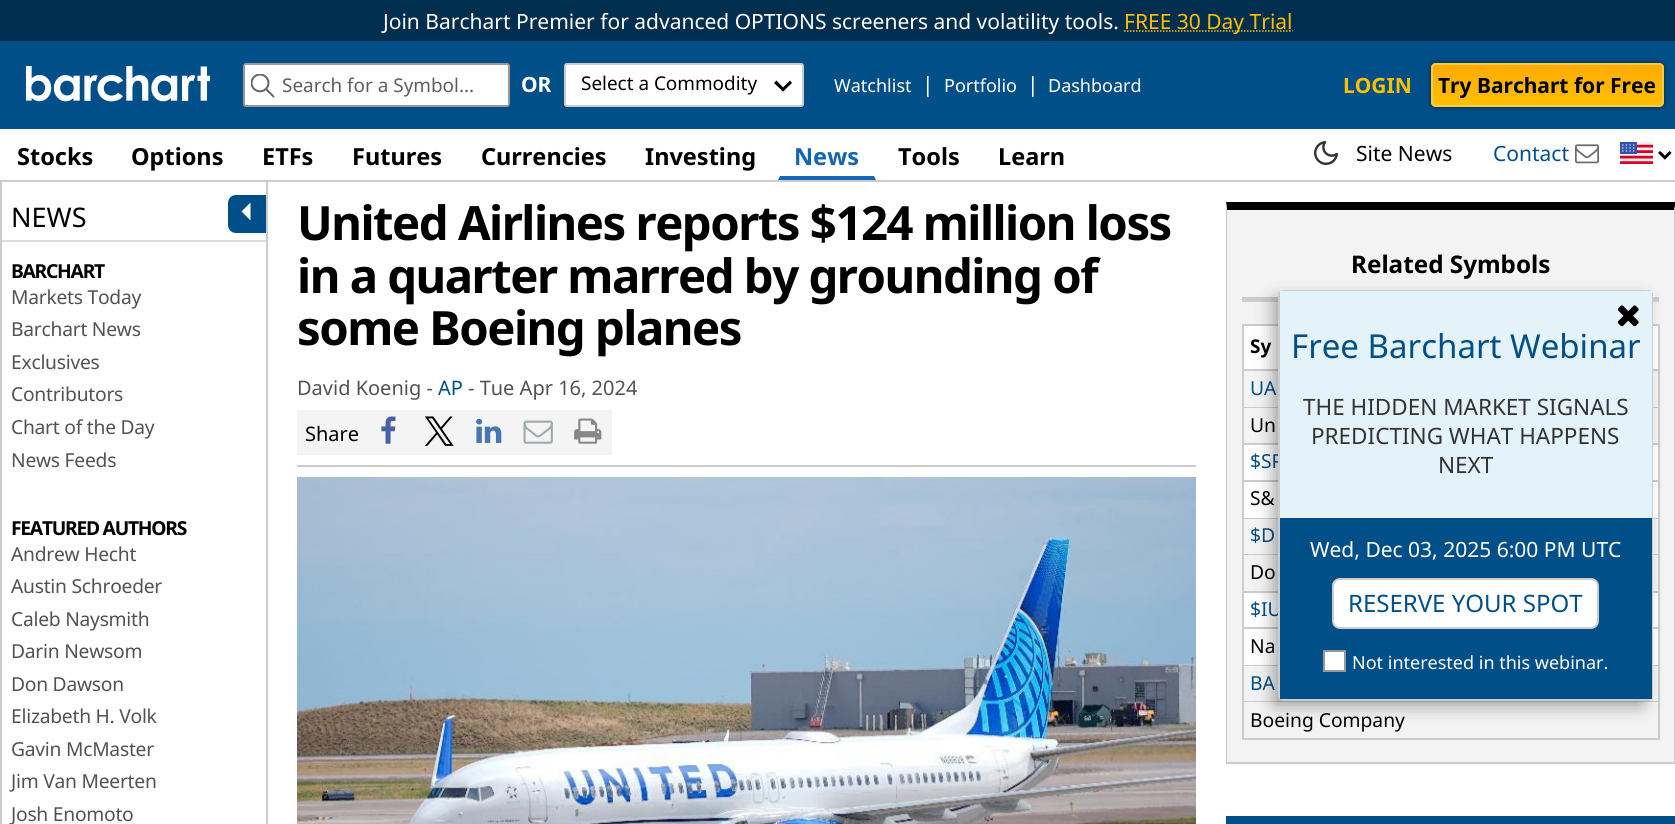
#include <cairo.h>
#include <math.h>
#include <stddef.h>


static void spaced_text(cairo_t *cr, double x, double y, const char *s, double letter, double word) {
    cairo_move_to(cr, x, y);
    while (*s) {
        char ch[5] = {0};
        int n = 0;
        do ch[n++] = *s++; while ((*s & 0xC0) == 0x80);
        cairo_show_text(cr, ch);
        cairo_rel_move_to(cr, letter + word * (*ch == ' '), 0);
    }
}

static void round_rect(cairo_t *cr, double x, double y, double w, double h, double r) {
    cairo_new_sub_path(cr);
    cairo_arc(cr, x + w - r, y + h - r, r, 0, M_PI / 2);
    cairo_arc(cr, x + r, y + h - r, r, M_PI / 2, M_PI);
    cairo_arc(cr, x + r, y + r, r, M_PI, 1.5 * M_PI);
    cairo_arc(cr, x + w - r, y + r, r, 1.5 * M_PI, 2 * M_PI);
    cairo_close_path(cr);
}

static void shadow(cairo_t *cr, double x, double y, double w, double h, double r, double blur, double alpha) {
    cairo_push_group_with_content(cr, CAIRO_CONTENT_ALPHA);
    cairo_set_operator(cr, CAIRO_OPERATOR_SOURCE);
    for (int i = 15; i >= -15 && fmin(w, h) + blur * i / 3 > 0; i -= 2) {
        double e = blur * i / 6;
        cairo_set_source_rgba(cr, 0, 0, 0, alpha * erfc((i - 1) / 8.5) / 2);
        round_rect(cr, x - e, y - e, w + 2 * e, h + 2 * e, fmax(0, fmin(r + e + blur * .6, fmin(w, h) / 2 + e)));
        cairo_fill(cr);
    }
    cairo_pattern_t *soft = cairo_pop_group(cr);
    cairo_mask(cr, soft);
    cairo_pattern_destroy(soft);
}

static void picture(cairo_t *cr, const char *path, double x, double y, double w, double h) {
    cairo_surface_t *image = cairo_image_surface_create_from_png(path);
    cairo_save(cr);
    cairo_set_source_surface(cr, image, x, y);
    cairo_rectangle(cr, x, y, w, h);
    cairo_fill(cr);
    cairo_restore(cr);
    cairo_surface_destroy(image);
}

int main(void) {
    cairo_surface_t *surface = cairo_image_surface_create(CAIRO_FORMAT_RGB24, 1675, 824);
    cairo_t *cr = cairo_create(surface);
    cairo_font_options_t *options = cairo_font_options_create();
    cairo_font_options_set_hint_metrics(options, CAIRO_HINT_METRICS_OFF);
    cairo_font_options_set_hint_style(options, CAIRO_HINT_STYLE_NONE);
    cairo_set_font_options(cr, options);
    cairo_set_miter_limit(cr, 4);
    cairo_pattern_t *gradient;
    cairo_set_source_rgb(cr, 1, 1, 1);
    cairo_paint(cr);
    cairo_set_source_rgb(cr, 0.8, 0.8, 0.8);
    cairo_rectangle(cr, 0, 180, 1675, 2);
    cairo_fill(cr);
    cairo_set_source_rgb(cr, 0, 0.18, 0.31);
    cairo_rectangle(cr, 0, 0, 1675, 41);
    cairo_fill(cr);
    cairo_select_font_face(cr, "Noto Sans", CAIRO_FONT_SLANT_NORMAL, CAIRO_FONT_WEIGHT_NORMAL);
    cairo_set_font_size(cr, 21);
    cairo_set_source_rgb(cr, 1, 1, 1);
    cairo_move_to(cr, 383, 29);
    cairo_show_text(cr, "Join Barchart Premier for advanced OPTIONS screeners and volatility tools.");
    cairo_new_path(cr);
    cairo_move_to(cr, 1124, 31);
    cairo_line_to(cr, 1292.5, 31);
    cairo_set_source_rgb(cr, 1, 0.749, 0);
    cairo_set_line_width(cr, 1.5);
    cairo_set_dash(cr, (double[]){1.5, 1.5}, 2, 0);
    cairo_stroke(cr);
    cairo_move_to(cr, 1124, 29);
    cairo_show_text(cr, "FREE 30 Day Trial");
    cairo_set_source_rgb(cr, 0, 0.31, 0.533);
    cairo_rectangle(cr, 0, 41, 1675, 88);
    cairo_fill(cr);
    picture(cr, "img1.png", 26, 66, 184, 36);
    cairo_set_source_rgb(cr, 1, 1, 1);
    round_rect(cr, 244, 64, 265, 42, 2);
    cairo_fill_preserve(cr);
    cairo_set_source_rgb(cr, 0.6, 0.6, 0.6);
    cairo_set_line_width(cr, 2);
    cairo_set_dash(cr, NULL, 0, 0);
    cairo_stroke(cr);
    picture(cr, "img2.png", 251, 74, 24, 24);
    cairo_set_font_size(cr, 18.9);
    cairo_set_source_rgb(cr, 0.369, 0.369, 0.369);
    cairo_move_to(cr, 282, 92);
    cairo_show_text(cr, "Search for a Symbol...");
    cairo_select_font_face(cr, "Noto Sans", CAIRO_FONT_SLANT_NORMAL, CAIRO_FONT_WEIGHT_BOLD);
    cairo_set_font_size(cr, 21);
    cairo_set_source_rgb(cr, 1, 1, 1);
    cairo_move_to(cr, 521, 92);
    cairo_show_text(cr, "OR");
    round_rect(cr, 565, 64, 238, 42, 2);
    cairo_fill_preserve(cr);
    cairo_set_source_rgb(cr, 0.8, 0.8, 0.8);
    cairo_stroke(cr);
    cairo_select_font_face(cr, "Noto Sans", CAIRO_FONT_SLANT_NORMAL, CAIRO_FONT_WEIGHT_NORMAL);
    cairo_set_font_size(cr, 18.9);
    cairo_set_source_rgb(cr, 0, 0, 0);
    cairo_move_to(cr, 581, 90);
    cairo_show_text(cr, "Select a Commodity");
    cairo_new_path(cr);
    cairo_move_to(cr, 790, 80.5);
    cairo_line_to(cr, 792, 83);
    cairo_line_to(cr, 783, 91.5);
    cairo_line_to(cr, 781, 89.5);
    cairo_close_path(cr);
    cairo_fill(cr);
    cairo_new_path(cr);
    cairo_move_to(cr, 776.5, 80.5);
    cairo_line_to(cr, 785, 89.5);
    cairo_line_to(cr, 783, 91.5);
    cairo_line_to(cr, 774, 83);
    cairo_close_path(cr);
    cairo_fill(cr);
    cairo_set_font_size(cr, 18);
    cairo_set_source_rgb(cr, 1, 1, 1);
    cairo_move_to(cr, 834, 92);
    cairo_show_text(cr, "Watchlist");
    cairo_set_font_size(cr, 21);
    cairo_move_to(cr, 922, 92);
    cairo_show_text(cr, "|");
    cairo_set_font_size(cr, 18);
    cairo_move_to(cr, 944, 92);
    cairo_show_text(cr, "Portfolio");
    cairo_set_font_size(cr, 21);
    cairo_move_to(cr, 1027, 92);
    cairo_show_text(cr, "|");
    cairo_set_font_size(cr, 18);
    cairo_move_to(cr, 1048, 92);
    cairo_show_text(cr, "Dashboard");
    cairo_select_font_face(cr, "Noto Sans", CAIRO_FONT_SLANT_NORMAL, CAIRO_FONT_WEIGHT_BOLD);
    cairo_set_font_size(cr, 21);
    cairo_set_source_rgb(cr, 1, 0.749, 0);
    cairo_move_to(cr, 1343, 93);
    cairo_show_text(cr, "LOGIN");
    cairo_set_source_rgb(cr, 0, 0, 0);
    shadow(cr, 1430, 62, 235, 46, 6, 2, 0.4);
    cairo_set_source_rgb(cr, 1, 0.749, 0);
    round_rect(cr, 1431, 63, 233, 44, 5);
    cairo_fill(cr);
    cairo_save(cr);
    round_rect(cr, 1431, 63, 233, 44, 5);
    cairo_clip(cr);
    gradient = cairo_pattern_create_linear(1547, 105, 1547, 65);
    cairo_pattern_add_color_stop_rgba(gradient, 0, 1, 0.671, 0, 0);
    cairo_pattern_add_color_stop_rgba(gradient, 1, 1, 0.671, 0, 1);
    cairo_set_source(cr, gradient);
    cairo_pattern_destroy(gradient);
    cairo_rectangle(cr, 1431, 65, 233, 39);
    cairo_fill(cr);
    cairo_restore(cr);
    round_rect(cr, 1432, 64, 231, 42, 4);
    cairo_set_source_rgb(cr, 0.973, 0.796, 0.271);
    cairo_stroke(cr);
    cairo_set_source_rgb(cr, 0, 0, 0);
    cairo_move_to(cr, 1438, 93);
    cairo_show_text(cr, "Try Barchart for Free");
    cairo_set_font_size(cr, 23.5);
    cairo_move_to(cr, 17, 165);
    cairo_show_text(cr, "Stocks");
    cairo_move_to(cr, 131, 165);
    cairo_show_text(cr, "Options");
    cairo_move_to(cr, 262, 165);
    cairo_show_text(cr, "ETFs");
    cairo_move_to(cr, 352, 165);
    cairo_show_text(cr, "Futures");
    cairo_move_to(cr, 481, 165);
    cairo_show_text(cr, "Currencies");
    cairo_move_to(cr, 645, 165);
    cairo_show_text(cr, "Investing");
    cairo_set_source_rgb(cr, 0.071, 0.4, 0.702);
    cairo_new_path(cr);
    cairo_move_to(cr, 876, 180);
    cairo_line_to(cr, 778, 180);
    cairo_line_to(cr, 780, 176);
    cairo_line_to(cr, 874, 176);
    cairo_close_path(cr);
    cairo_fill(cr);
    cairo_move_to(cr, 794, 165);
    cairo_show_text(cr, "News");
    cairo_set_source_rgb(cr, 0, 0, 0);
    cairo_move_to(cr, 898, 165);
    cairo_show_text(cr, "Tools");
    cairo_move_to(cr, 998, 165);
    cairo_show_text(cr, "Learn");
    picture(cr, "img3.png", 1314, 141, 24, 24);
    cairo_select_font_face(cr, "Noto Sans", CAIRO_FONT_SLANT_NORMAL, CAIRO_FONT_WEIGHT_NORMAL);
    cairo_set_font_size(cr, 21);
    cairo_move_to(cr, 1356, 161);
    cairo_show_text(cr, "Site News");
    cairo_set_source_rgb(cr, 0, 0.31, 0.533);
    cairo_move_to(cr, 1493, 161);
    cairo_show_text(cr, "Contact");
    picture(cr, "img4.png", 1575, 144, 24, 20);
    picture(cr, "img5.png", 1620, 142, 33, 22);
    picture(cr, "img6.png", 1658, 151, 14, 9);
    cairo_set_source_rgb(cr, 0.8, 0.8, 0.8);
    cairo_rectangle(cr, 266, 182, 2, 642);
    cairo_fill(cr);
    cairo_rectangle(cr, 0, 182, 2, 642);
    cairo_fill(cr);
    cairo_set_source_rgb(cr, 0.867, 0.867, 0.867);
    cairo_rectangle(cr, 2, 240, 264, 2);
    cairo_fill(cr);
    cairo_set_font_size(cr, 27);
    cairo_set_source_rgb(cr, 0, 0, 0);
    cairo_move_to(cr, 11, 227);
    cairo_show_text(cr, "NEWS");
    cairo_select_font_face(cr, "Noto Sans", CAIRO_FONT_SLANT_NORMAL, CAIRO_FONT_WEIGHT_BOLD);
    cairo_set_font_size(cr, 19.25);
    spaced_text(cr, 11, 278, "BARCHART", -1.25, 0);
    cairo_select_font_face(cr, "Noto Sans", CAIRO_FONT_SLANT_NORMAL, CAIRO_FONT_WEIGHT_NORMAL);
    cairo_set_source_rgb(cr, 0.322, 0.322, 0.322);
    spaced_text(cr, 11, 304, "Markets Today", -0.25, 0);
    spaced_text(cr, 11, 336, "Barchart News", -0.25, 0);
    spaced_text(cr, 11, 369, "Exclusives", -0.25, 0);
    spaced_text(cr, 11, 401, "Contributors", -0.25, 0);
    spaced_text(cr, 11, 434, "Chart of the Day", -0.25, 0);
    spaced_text(cr, 11, 467, "News Feeds", -0.25, 0);
    cairo_select_font_face(cr, "Noto Sans", CAIRO_FONT_SLANT_NORMAL, CAIRO_FONT_WEIGHT_BOLD);
    cairo_set_source_rgb(cr, 0, 0, 0);
    spaced_text(cr, 11, 535, "FEATURED AUTHORS", -1.25, 0);
    cairo_select_font_face(cr, "Noto Sans", CAIRO_FONT_SLANT_NORMAL, CAIRO_FONT_WEIGHT_NORMAL);
    cairo_set_source_rgb(cr, 0.322, 0.322, 0.322);
    spaced_text(cr, 11, 561, "Andrew Hecht", -0.25, 0);
    spaced_text(cr, 11, 593, "Austin Schroeder", -0.25, 0);
    spaced_text(cr, 11, 626, "Caleb Naysmith", -0.25, 0);
    spaced_text(cr, 11, 658, "Darin Newsom", -0.25, 0);
    spaced_text(cr, 11, 691, "Don Dawson", -0.25, 0);
    spaced_text(cr, 11, 723, "Elizabeth H. Volk", -0.25, 0);
    spaced_text(cr, 11, 756, "Gavin McMaster", -0.25, 0);
    spaced_text(cr, 11, 788, "Jim Van Meerten", -0.25, 0);
    spaced_text(cr, 11, 821, "Josh Enomoto", -0.25, 0);
    cairo_set_source_rgb(cr, 0, 0.31, 0.533);
    cairo_new_path(cr);
    cairo_move_to(cr, 236, 195);
    cairo_line_to(cr, 266, 195);
    cairo_line_to(cr, 266, 233);
    cairo_line_to(cr, 236, 233);
    cairo_curve_to(cr, 231.5, 233, 228, 229.5, 228, 225);
    cairo_line_to(cr, 228, 203);
    cairo_curve_to(cr, 228, 198.5, 231.5, 195, 236, 195);
    cairo_close_path(cr);
    cairo_fill(cr);
    cairo_set_source_rgb(cr, 1, 1, 1);
    cairo_new_path(cr);
    cairo_move_to(cr, 250.5, 202.5);
    cairo_line_to(cr, 250.5, 220.5);
    cairo_line_to(cr, 241.5, 211.5);
    cairo_close_path(cr);
    cairo_fill(cr);
    cairo_set_source_rgb(cr, 0.8, 0.8, 0.8);
    cairo_rectangle(cr, 297, 465, 899, 2);
    cairo_fill(cr);
    cairo_select_font_face(cr, "Noto Sans", CAIRO_FONT_SLANT_NORMAL, CAIRO_FONT_WEIGHT_BOLD);
    cairo_set_font_size(cr, 47.25);
    cairo_set_source_rgb(cr, 0, 0, 0);
    spaced_text(cr, 297, 240, "United Airlines reports $124 million loss", -1.5, 0);
    spaced_text(cr, 297, 293, "in a quarter marred by grounding of", -1.5, 0);
    spaced_text(cr, 297, 345, "some Boeing planes", -1.5, 0);
    cairo_select_font_face(cr, "Noto Sans", CAIRO_FONT_SLANT_NORMAL, CAIRO_FONT_WEIGHT_NORMAL);
    cairo_set_font_size(cr, 20);
    cairo_set_source_rgb(cr, 0.322, 0.322, 0.322);
    cairo_move_to(cr, 297, 395);
    cairo_show_text(cr, "David Koenig -");
    cairo_set_source_rgb(cr, 0, 0.31, 0.533);
    cairo_move_to(cr, 438, 395);
    cairo_show_text(cr, "AP");
    cairo_set_source_rgb(cr, 0.322, 0.322, 0.322);
    cairo_move_to(cr, 468, 395);
    cairo_show_text(cr, "- Tue Apr 16, 2024");
    cairo_set_source_rgb(cr, 0.957, 0.957, 0.957);
    cairo_rectangle(cr, 297, 410, 315, 45);
    cairo_fill(cr);
    cairo_set_source_rgb(cr, 0, 0, 0);
    cairo_move_to(cr, 305, 441);
    cairo_show_text(cr, "Share");
    picture(cr, "img7.png", 381, 416, 15, 28);
    picture(cr, "img8.png", 424, 416, 30, 30);
    picture(cr, "img9.png", 476, 418, 26, 25);
    picture(cr, "img10.png", 523, 420, 30, 24);
    picture(cr, "img11.png", 574, 418, 28, 26);
    picture(cr, "img12.png", 297, 477, 899, 347);
    cairo_set_source_rgb(cr, 0.953, 0.953, 0.953);
    cairo_rectangle(cr, 1227, 210, 447, 552);
    cairo_fill(cr);
    cairo_set_source_rgb(cr, 0, 0, 0);
    cairo_new_path(cr);
    cairo_move_to(cr, 1226, 202);
    cairo_line_to(cr, 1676, 202);
    cairo_line_to(cr, 1674, 210);
    cairo_line_to(cr, 1227, 210);
    cairo_close_path(cr);
    cairo_fill(cr);
    cairo_set_source_rgb(cr, 0.8, 0.8, 0.8);
    cairo_new_path(cr);
    cairo_move_to(cr, 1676, 202);
    cairo_line_to(cr, 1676, 764);
    cairo_line_to(cr, 1674, 762);
    cairo_line_to(cr, 1674, 210);
    cairo_close_path(cr);
    cairo_fill(cr);
    cairo_rectangle(cr, 1226, 762, 449, 2);
    cairo_fill(cr);
    cairo_new_path(cr);
    cairo_move_to(cr, 1226, 764);
    cairo_line_to(cr, 1226, 202);
    cairo_line_to(cr, 1227, 210);
    cairo_line_to(cr, 1227, 762);
    cairo_close_path(cr);
    cairo_fill(cr);
    cairo_rectangle(cr, 1242, 297, 417, 5);
    cairo_fill(cr);
    cairo_select_font_face(cr, "Noto Sans", CAIRO_FONT_SLANT_NORMAL, CAIRO_FONT_WEIGHT_BOLD);
    cairo_set_font_size(cr, 24.25);
    cairo_set_source_rgb(cr, 0, 0, 0);
    cairo_move_to(cr, 1351, 273);
    cairo_show_text(cr, "Related Symbols");
    cairo_set_source_rgb(cr, 1, 1, 1);
    cairo_rectangle(cr, 1244, 326, 414, 339);
    cairo_fill(cr);
    cairo_set_source_rgb(cr, 0.8, 0.8, 0.8);
    cairo_rectangle(cr, 1242, 324, 417, 2);
    cairo_fill(cr);
    cairo_rectangle(cr, 1658, 324, 2, 416);
    cairo_fill(cr);
    cairo_rectangle(cr, 1242, 369, 36, 2);
    cairo_fill(cr);
    cairo_rectangle(cr, 1242, 326, 2, 45);
    cairo_fill(cr);
    cairo_set_font_size(cr, 18.9);
    cairo_set_source_rgb(cr, 0, 0, 0);
    cairo_move_to(cr, 1250, 353);
    cairo_show_text(cr, "Sy");
    cairo_set_source_rgb(cr, 0.8, 0.8, 0.8);
    cairo_rectangle(cr, 1653, 369, 5, 2);
    cairo_fill(cr);
    cairo_set_source_rgb(cr, 0.957, 0.957, 0.957);
    cairo_rectangle(cr, 1244, 371, 34, 36);
    cairo_fill(cr);
    cairo_set_source_rgb(cr, 0.8, 0.8, 0.8);
    cairo_rectangle(cr, 1242, 407, 36, 1);
    cairo_fill(cr);
    cairo_rectangle(cr, 1242, 371, 2, 37);
    cairo_fill(cr);
    cairo_select_font_face(cr, "Noto Sans", CAIRO_FONT_SLANT_NORMAL, CAIRO_FONT_WEIGHT_NORMAL);
    cairo_set_font_size(cr, 19.25);
    cairo_set_source_rgb(cr, 0, 0.31, 0.533);
    cairo_move_to(cr, 1250, 395);
    cairo_show_text(cr, "UA");
    cairo_set_source_rgb(cr, 0.957, 0.957, 0.957);
    cairo_rectangle(cr, 1653, 371, 5, 36);
    cairo_fill(cr);
    cairo_set_source_rgb(cr, 0.8, 0.8, 0.8);
    cairo_rectangle(cr, 1653, 407, 5, 1);
    cairo_fill(cr);
    cairo_set_source_rgb(cr, 0.957, 0.957, 0.957);
    cairo_rectangle(cr, 1244, 408, 414, 35);
    cairo_fill(cr);
    cairo_set_source_rgb(cr, 0.8, 0.8, 0.8);
    cairo_rectangle(cr, 1242, 443, 416, 2);
    cairo_fill(cr);
    cairo_rectangle(cr, 1242, 408, 2, 36);
    cairo_fill(cr);
    cairo_set_source_rgb(cr, 0, 0, 0);
    cairo_move_to(cr, 1250, 432);
    cairo_show_text(cr, "Un");
    cairo_set_source_rgb(cr, 0.8, 0.8, 0.8);
    cairo_rectangle(cr, 1242, 480, 36, 2);
    cairo_fill(cr);
    cairo_rectangle(cr, 1242, 444, 2, 38);
    cairo_fill(cr);
    cairo_set_source_rgb(cr, 0, 0.31, 0.533);
    cairo_move_to(cr, 1250, 468);
    cairo_show_text(cr, "$SP");
    cairo_set_source_rgb(cr, 0.8, 0.8, 0.8);
    cairo_rectangle(cr, 1653, 480, 5, 2);
    cairo_fill(cr);
    cairo_rectangle(cr, 1242, 518, 416, 1);
    cairo_fill(cr);
    cairo_rectangle(cr, 1242, 482, 2, 37);
    cairo_fill(cr);
    cairo_set_source_rgb(cr, 0, 0, 0);
    cairo_move_to(cr, 1250, 505);
    cairo_show_text(cr, "S&");
    cairo_set_source_rgb(cr, 0.957, 0.957, 0.957);
    cairo_rectangle(cr, 1244, 519, 34, 35);
    cairo_fill(cr);
    cairo_set_source_rgb(cr, 0.8, 0.8, 0.8);
    cairo_rectangle(cr, 1242, 554, 36, 1);
    cairo_fill(cr);
    cairo_rectangle(cr, 1242, 519, 2, 36);
    cairo_fill(cr);
    cairo_set_source_rgb(cr, 0, 0.31, 0.533);
    cairo_move_to(cr, 1250, 542);
    cairo_show_text(cr, "$D");
    cairo_set_source_rgb(cr, 0.957, 0.957, 0.957);
    cairo_rectangle(cr, 1653, 519, 5, 35);
    cairo_fill(cr);
    cairo_set_source_rgb(cr, 0.8, 0.8, 0.8);
    cairo_rectangle(cr, 1653, 554, 5, 1);
    cairo_fill(cr);
    cairo_set_source_rgb(cr, 0.957, 0.957, 0.957);
    cairo_rectangle(cr, 1244, 555, 414, 36);
    cairo_fill(cr);
    cairo_set_source_rgb(cr, 0.8, 0.8, 0.8);
    cairo_rectangle(cr, 1242, 591, 416, 2);
    cairo_fill(cr);
    cairo_rectangle(cr, 1242, 555, 2, 38);
    cairo_fill(cr);
    cairo_set_source_rgb(cr, 0, 0, 0);
    cairo_move_to(cr, 1250, 579);
    cairo_show_text(cr, "Do");
    cairo_set_source_rgb(cr, 0.8, 0.8, 0.8);
    cairo_rectangle(cr, 1242, 627, 36, 2);
    cairo_fill(cr);
    cairo_rectangle(cr, 1242, 593, 2, 36);
    cairo_fill(cr);
    cairo_set_source_rgb(cr, 0, 0.31, 0.533);
    cairo_move_to(cr, 1250, 616);
    cairo_show_text(cr, "$IU");
    cairo_set_source_rgb(cr, 0.8, 0.8, 0.8);
    cairo_rectangle(cr, 1653, 627, 5, 2);
    cairo_fill(cr);
    cairo_rectangle(cr, 1242, 665, 416, 1);
    cairo_fill(cr);
    cairo_rectangle(cr, 1242, 629, 2, 37);
    cairo_fill(cr);
    cairo_set_source_rgb(cr, 0, 0, 0);
    cairo_move_to(cr, 1250, 653);
    cairo_show_text(cr, "Na");
    cairo_set_source_rgb(cr, 0.8, 0.8, 0.8);
    cairo_rectangle(cr, 1242, 701, 416, 1);
    cairo_fill(cr);
    cairo_rectangle(cr, 1242, 666, 2, 36);
    cairo_fill(cr);
    cairo_set_source_rgb(cr, 0, 0.31, 0.533);
    cairo_move_to(cr, 1250, 690);
    cairo_show_text(cr, "BA");
    cairo_set_source_rgb(cr, 0.8, 0.8, 0.8);
    cairo_rectangle(cr, 1242, 738, 416, 2);
    cairo_fill(cr);
    cairo_rectangle(cr, 1242, 702, 2, 38);
    cairo_fill(cr);
    cairo_set_source_rgb(cr, 0, 0, 0);
    cairo_move_to(cr, 1250, 727);
    cairo_show_text(cr, "Boeing Company");
    cairo_set_source_rgb(cr, 0, 0.31, 0.533);
    cairo_rectangle(cr, 1226, 816, 449, 8);
    cairo_fill(cr);
    cairo_set_source_rgb(cr, 0, 0, 0);
    shadow(cr, 1274, 300, 369, 405, 1.5, 9, 0.38);
    round_rect(cr, 1279, 291, 373, 409, 4);
    cairo_set_source_rgb(cr, 0.8, 0.8, 0.8);
    cairo_stroke(cr);
    cairo_set_source_rgb(cr, 0.89, 0.953, 0.976);
    cairo_rectangle(cr, 1280, 291, 372, 227);
    cairo_fill(cr);
    picture(cr, "img13.png", 1617, 305, 22, 22);
    cairo_set_font_size(cr, 33);
    cairo_set_source_rgb(cr, 0, 0.31, 0.533);
    cairo_move_to(cr, 1291, 358);
    cairo_show_text(cr, "Free Barchart Webinar");
    cairo_set_font_size(cr, 22.5);
    cairo_set_source_rgb(cr, 0.2, 0.2, 0.2);
    cairo_move_to(cr, 1303, 415);
    cairo_show_text(cr, "THE HIDDEN MARKET SIGNALS");
    cairo_move_to(cr, 1311, 444);
    cairo_show_text(cr, "PREDICTING WHAT HAPPENS");
    cairo_move_to(cr, 1438, 473);
    cairo_show_text(cr, "NEXT");
    cairo_set_source_rgb(cr, 0, 0.31, 0.533);
    cairo_rectangle(cr, 1280, 518, 372, 181);
    cairo_fill(cr);
    cairo_set_font_size(cr, 21);
    cairo_set_source_rgb(cr, 1, 1, 1);
    cairo_move_to(cr, 1310, 557);
    cairo_show_text(cr, "Wed, Dec 03, 2025 6:00 PM UTC");
    round_rect(cr, 1333, 579, 265, 49, 7);
    cairo_fill_preserve(cr);
    cairo_set_source_rgb(cr, 0.8, 0.8, 0.8);
    cairo_stroke(cr);
    cairo_set_font_size(cr, 24);
    cairo_set_source_rgb(cr, 0, 0.31, 0.533);
    cairo_move_to(cr, 1348, 612);
    cairo_show_text(cr, "RESERVE YOUR SPOT");
    cairo_set_source_rgb(cr, 1, 1, 1);
    cairo_rectangle(cr, 1324, 651, 21, 20);
    cairo_fill_preserve(cr);
    cairo_set_source_rgb(cr, 0.6, 0.6, 0.6);
    cairo_stroke(cr);
    cairo_set_font_size(cr, 18);
    cairo_set_source_rgb(cr, 1, 1, 1);
    cairo_move_to(cr, 1352, 669);
    cairo_show_text(cr, "Not interested in this webinar.");
    cairo_surface_write_to_png(surface, "page.png");
    cairo_font_options_destroy(options);
    cairo_destroy(cr);
    cairo_surface_destroy(surface);
    return 0;
}
